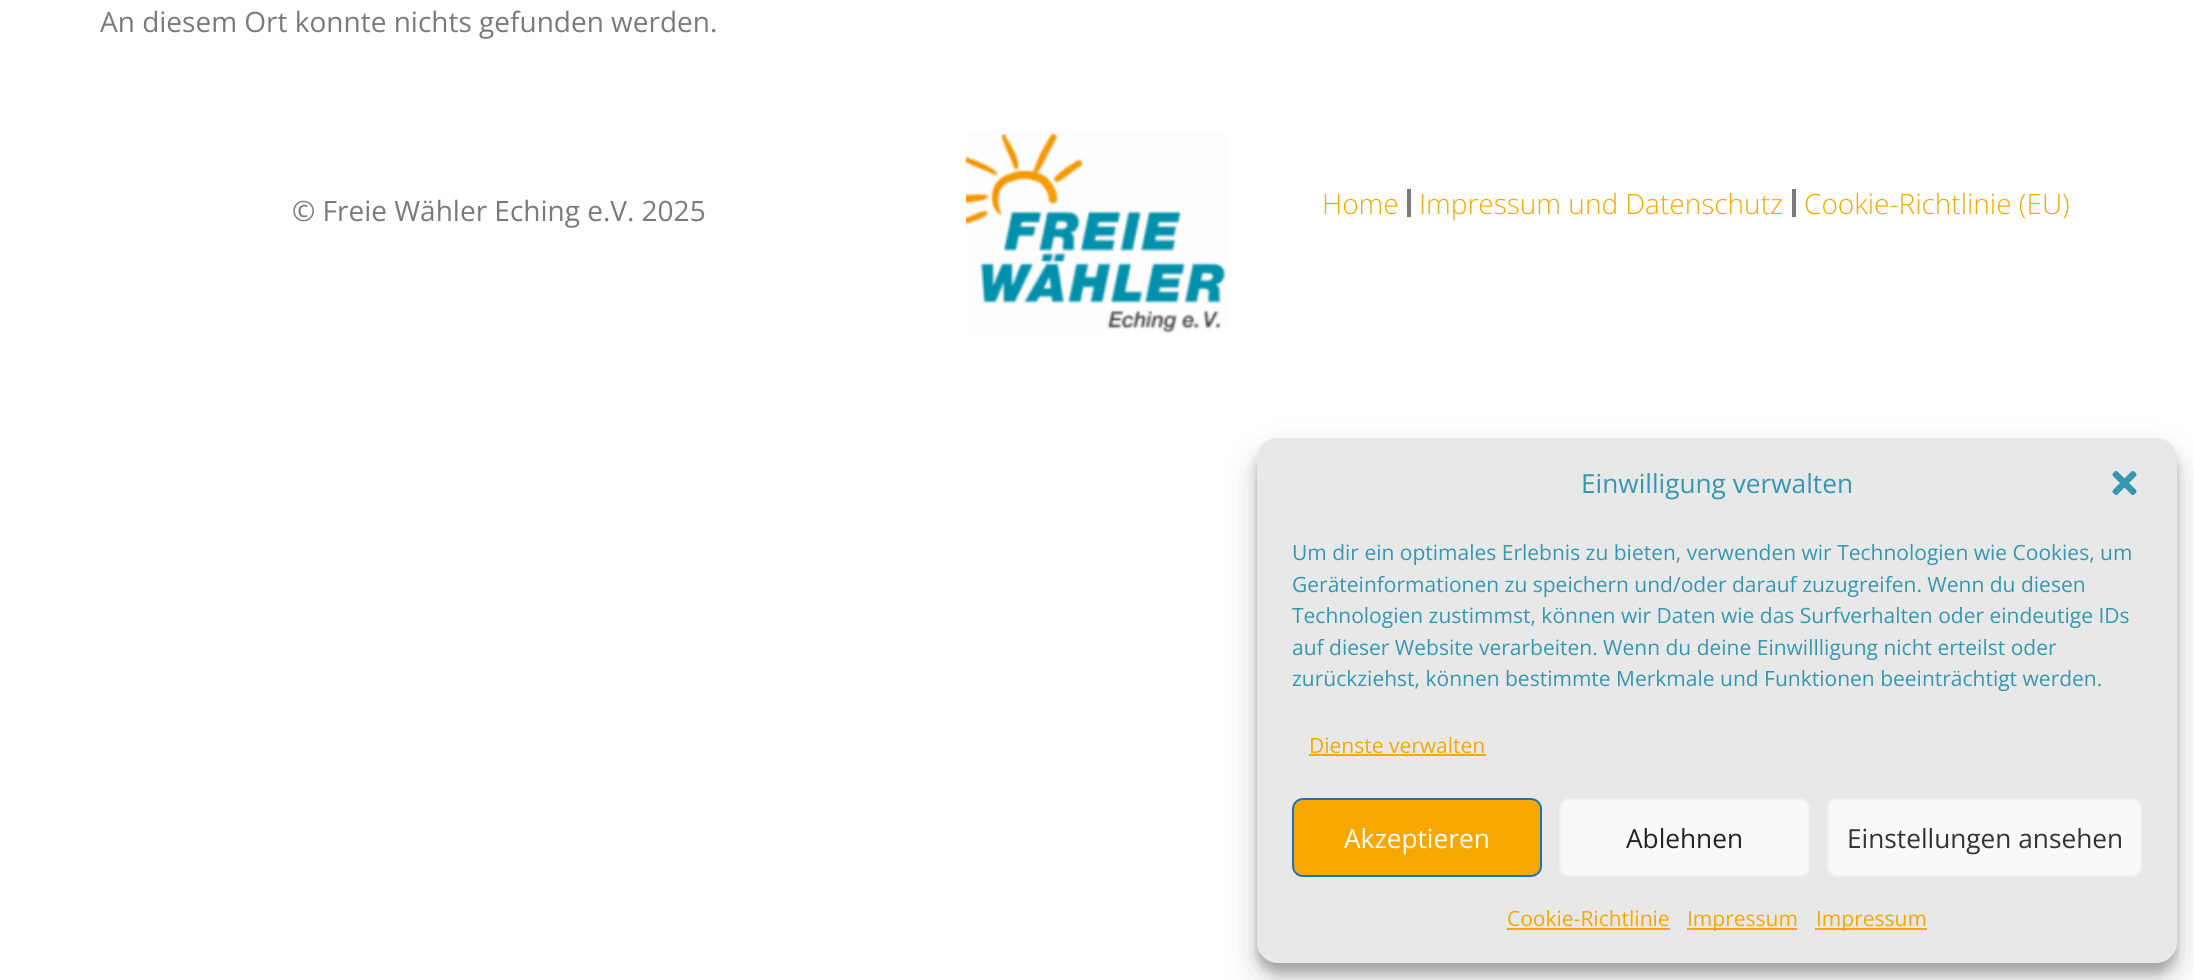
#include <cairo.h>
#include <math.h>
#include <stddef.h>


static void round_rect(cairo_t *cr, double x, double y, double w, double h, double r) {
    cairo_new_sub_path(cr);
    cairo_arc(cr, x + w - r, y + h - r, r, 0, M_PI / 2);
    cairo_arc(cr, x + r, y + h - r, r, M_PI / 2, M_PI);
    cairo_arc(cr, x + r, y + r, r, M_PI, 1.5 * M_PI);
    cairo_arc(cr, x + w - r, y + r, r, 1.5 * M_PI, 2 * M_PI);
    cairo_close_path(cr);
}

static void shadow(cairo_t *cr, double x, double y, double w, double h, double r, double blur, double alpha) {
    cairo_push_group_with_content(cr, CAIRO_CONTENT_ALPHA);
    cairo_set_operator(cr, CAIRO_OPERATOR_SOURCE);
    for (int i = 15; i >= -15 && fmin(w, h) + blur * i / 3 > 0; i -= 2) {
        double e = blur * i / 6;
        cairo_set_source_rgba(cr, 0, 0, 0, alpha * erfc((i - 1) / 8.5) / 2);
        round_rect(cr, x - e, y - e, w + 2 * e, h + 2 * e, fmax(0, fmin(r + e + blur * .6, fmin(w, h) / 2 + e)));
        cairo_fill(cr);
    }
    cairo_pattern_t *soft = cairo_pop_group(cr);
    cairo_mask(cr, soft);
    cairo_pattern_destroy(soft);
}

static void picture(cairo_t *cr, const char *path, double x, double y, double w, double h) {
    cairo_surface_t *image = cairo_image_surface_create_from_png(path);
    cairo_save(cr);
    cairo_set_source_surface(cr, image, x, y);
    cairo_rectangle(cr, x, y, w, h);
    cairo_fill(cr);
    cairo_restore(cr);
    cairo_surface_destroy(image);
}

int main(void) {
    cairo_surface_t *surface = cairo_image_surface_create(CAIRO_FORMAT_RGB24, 2194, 980);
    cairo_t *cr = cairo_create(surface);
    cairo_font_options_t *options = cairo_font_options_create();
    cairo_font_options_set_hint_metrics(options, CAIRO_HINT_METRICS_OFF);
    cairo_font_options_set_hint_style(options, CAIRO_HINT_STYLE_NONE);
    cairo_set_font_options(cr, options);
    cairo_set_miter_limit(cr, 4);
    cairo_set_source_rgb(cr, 1, 1, 1);
    cairo_paint(cr);
    cairo_select_font_face(cr, "Open Sans", CAIRO_FONT_SLANT_NORMAL, CAIRO_FONT_WEIGHT_NORMAL);
    cairo_set_font_size(cr, 28);
    cairo_set_source_rgb(cr, 0.478, 0.478, 0.478);
    cairo_move_to(cr, 100, 32);
    cairo_show_text(cr, "An diesem Ort konnte nichts gefunden werden.");
    cairo_move_to(cr, 292, 221);
    cairo_show_text(cr, "© Freie Wähler Eching e.V. 2025");
    picture(cr, "img1.png", 966, 132, 261, 201);
    cairo_select_font_face(cr, "Open Sans Light", CAIRO_FONT_SLANT_NORMAL, CAIRO_FONT_WEIGHT_NORMAL);
    cairo_set_source_rgb(cr, 0.965, 0.659, 0);
    cairo_move_to(cr, 1322, 214);
    cairo_show_text(cr, "Home");
    cairo_set_source_rgb(cr, 0.478, 0.478, 0.478);
    cairo_rectangle(cr, 1407, 189, 4, 28);
    cairo_fill(cr);
    cairo_set_source_rgb(cr, 0.965, 0.659, 0);
    cairo_move_to(cr, 1419, 214);
    cairo_show_text(cr, "Impressum und Datenschutz");
    cairo_set_source_rgb(cr, 0.478, 0.478, 0.478);
    cairo_rectangle(cr, 1792, 189, 4, 28);
    cairo_fill(cr);
    cairo_set_source_rgb(cr, 0.965, 0.659, 0);
    cairo_move_to(cr, 1804, 214);
    cairo_show_text(cr, "Cookie-Richtlinie (EU)");
    cairo_set_source_rgb(cr, 0, 0, 0);
    shadow(cr, 1257, 448, 920, 525, 21, 5, 0.23);
    shadow(cr, 1257, 455, 920, 525, 21, 17.5, 0.19);
    cairo_set_source_rgb(cr, 0.91, 0.91, 0.91);
    round_rect(cr, 1257, 438, 920, 525, 21);
    cairo_fill(cr);
    cairo_select_font_face(cr, "Open Sans", CAIRO_FONT_SLANT_NORMAL, CAIRO_FONT_WEIGHT_NORMAL);
    cairo_set_font_size(cr, 26.25);
    cairo_set_source_rgb(cr, 0.212, 0.592, 0.69);
    cairo_move_to(cr, 1581, 493);
    cairo_show_text(cr, "Einwilligung verwalten");
    picture(cr, "img2.png", 2112, 471, 25, 24);
    cairo_set_font_size(cr, 21);
    cairo_move_to(cr, 1292, 560);
    cairo_show_text(cr, "Um dir ein optimales Erlebnis zu bieten, verwenden wir Technologien wie Cookies, um");
    cairo_move_to(cr, 1292, 592);
    cairo_show_text(cr, "Geräteinformationen zu speichern und/oder darauf zuzugreifen. Wenn du diesen");
    cairo_move_to(cr, 1292, 623);
    cairo_show_text(cr, "Technologien zustimmst, können wir Daten wie das Surfverhalten oder eindeutige IDs");
    cairo_move_to(cr, 1292, 655);
    cairo_show_text(cr, "auf dieser Website verarbeiten. Wenn du deine Einwillligung nicht erteilst oder");
    cairo_move_to(cr, 1292, 686);
    cairo_show_text(cr, "zurückziehst, können bestimmte Merkmale und Funktionen beeinträchtigt werden.");
    cairo_set_source_rgb(cr, 0.965, 0.659, 0);
    cairo_move_to(cr, 1309, 753);
    cairo_show_text(cr, "Dienste verwalten");
    cairo_rectangle(cr, 1309, 754, 177, 2);
    cairo_fill(cr);
    round_rect(cr, 1293, 799, 248, 77, 10);
    cairo_fill_preserve(cr);
    cairo_set_source_rgb(cr, 0.118, 0.451, 0.745);
    cairo_stroke(cr);
    cairo_set_font_size(cr, 26.25);
    cairo_set_source_rgb(cr, 1, 1, 1);
    cairo_move_to(cr, 1344, 848);
    cairo_show_text(cr, "Akzeptieren");
    cairo_set_source_rgb(cr, 0.976, 0.976, 0.976);
    round_rect(cr, 1560, 799, 249, 77, 10);
    cairo_fill_preserve(cr);
    cairo_set_source_rgb(cr, 0.949, 0.949, 0.949);
    cairo_stroke(cr);
    cairo_set_source_rgb(cr, 0.133, 0.133, 0.133);
    cairo_move_to(cr, 1626, 848);
    cairo_show_text(cr, "Ablehnen");
    cairo_set_source_rgb(cr, 0.976, 0.976, 0.976);
    round_rect(cr, 1828, 799, 313, 77, 10);
    cairo_fill_preserve(cr);
    cairo_set_source_rgb(cr, 0.949, 0.949, 0.949);
    cairo_stroke(cr);
    cairo_set_source_rgb(cr, 0.2, 0.2, 0.2);
    cairo_move_to(cr, 1847, 848);
    cairo_show_text(cr, "Einstellungen ansehen");
    cairo_set_font_size(cr, 21);
    cairo_set_source_rgb(cr, 0.965, 0.659, 0);
    cairo_move_to(cr, 1507, 926);
    cairo_show_text(cr, "Cookie-Richtlinie");
    cairo_rectangle(cr, 1507, 928, 163, 2);
    cairo_fill(cr);
    cairo_rectangle(cr, 1687, 928, 110, 2);
    cairo_fill(cr);
    cairo_move_to(cr, 1687, 926);
    cairo_show_text(cr, "Impressum");
    cairo_rectangle(cr, 1815, 928, 112, 2);
    cairo_fill(cr);
    cairo_move_to(cr, 1816, 926);
    cairo_show_text(cr, "Impressum");
    cairo_surface_write_to_png(surface, "page.png");
    cairo_font_options_destroy(options);
    cairo_destroy(cr);
    cairo_surface_destroy(surface);
    return 0;
}
